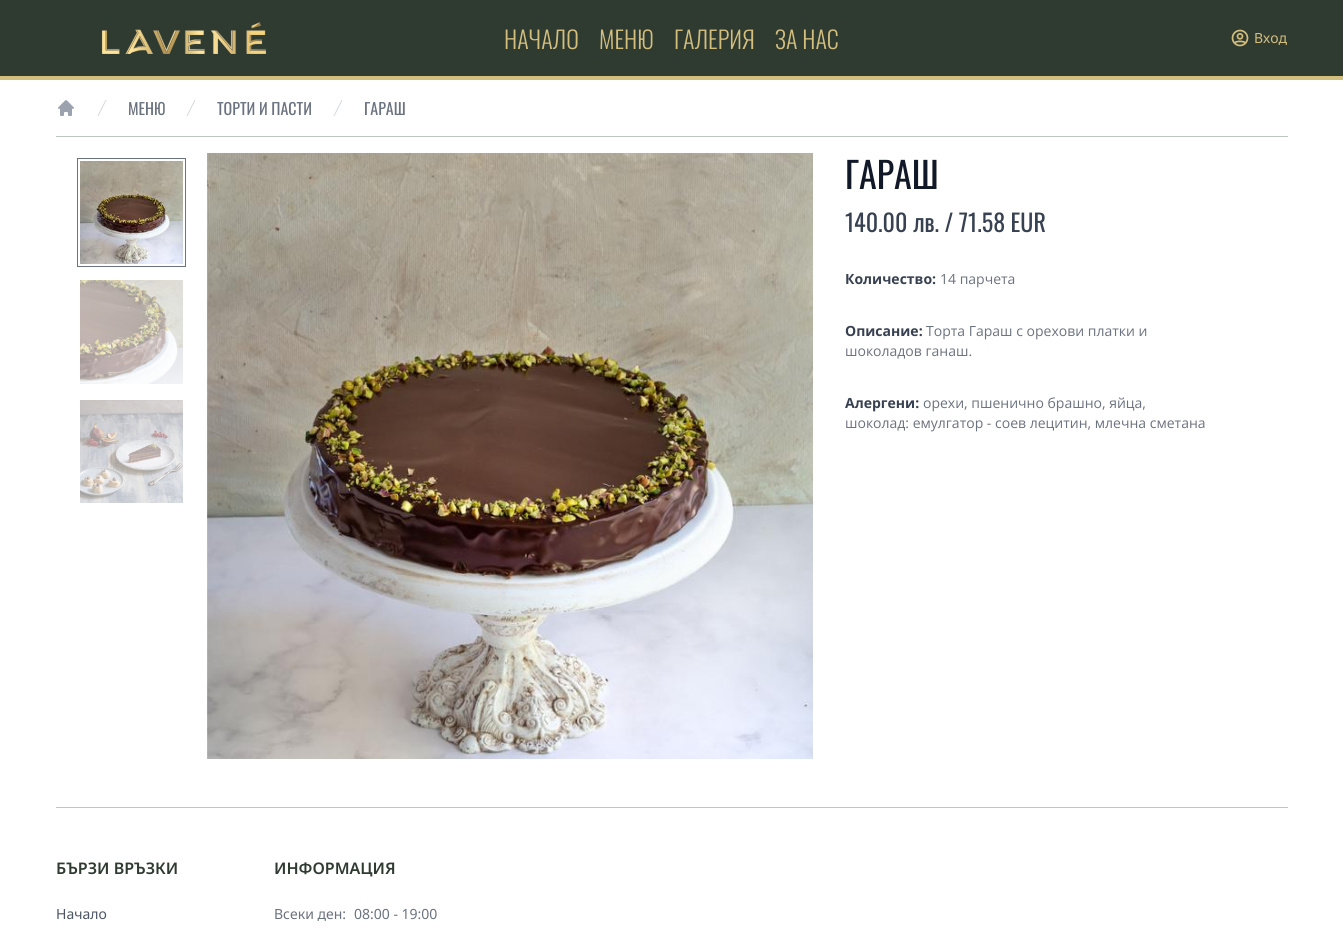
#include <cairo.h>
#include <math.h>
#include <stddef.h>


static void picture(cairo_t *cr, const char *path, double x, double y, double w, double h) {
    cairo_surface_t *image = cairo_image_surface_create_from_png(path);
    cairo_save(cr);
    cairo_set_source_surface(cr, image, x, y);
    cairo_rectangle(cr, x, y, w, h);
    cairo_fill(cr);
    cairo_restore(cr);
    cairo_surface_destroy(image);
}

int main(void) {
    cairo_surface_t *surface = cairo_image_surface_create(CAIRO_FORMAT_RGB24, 1343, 937);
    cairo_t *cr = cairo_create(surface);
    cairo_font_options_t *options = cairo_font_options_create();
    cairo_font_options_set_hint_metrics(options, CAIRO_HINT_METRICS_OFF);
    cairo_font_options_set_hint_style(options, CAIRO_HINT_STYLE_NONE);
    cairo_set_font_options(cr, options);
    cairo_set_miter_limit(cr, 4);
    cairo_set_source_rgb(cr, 1, 1, 1);
    cairo_paint(cr);
    cairo_set_source_rgb(cr, 0.184, 0.231, 0.192);
    cairo_rectangle(cr, 0, 0, 1343, 76);
    cairo_fill(cr);
    cairo_set_source_rgb(cr, 0.831, 0.745, 0.494);
    cairo_rectangle(cr, 0, 76, 1343, 4);
    cairo_fill(cr);
    picture(cr, "img1.png", 101, 22, 166, 32);
    cairo_select_font_face(cr, "Oswald Light", CAIRO_FONT_SLANT_NORMAL, CAIRO_FONT_WEIGHT_NORMAL);
    cairo_set_font_size(cr, 24);
    cairo_move_to(cr, 504, 49);
    cairo_show_text(cr, "НАЧАЛО");
    cairo_move_to(cr, 599, 49);
    cairo_show_text(cr, "МЕНЮ");
    cairo_move_to(cr, 674, 49);
    cairo_show_text(cr, "ГАЛЕРИЯ");
    cairo_move_to(cr, 775, 49);
    cairo_show_text(cr, "ЗА НАС");
    picture(cr, "img2.png", 1231, 29, 18, 18);
    cairo_select_font_face(cr, "Noto Sans", CAIRO_FONT_SLANT_NORMAL, CAIRO_FONT_WEIGHT_NORMAL);
    cairo_set_font_size(cr, 14);
    cairo_move_to(cr, 1254, 43);
    cairo_show_text(cr, "Вход");
    picture(cr, "img3.png", 58, 100, 16, 16);
    cairo_set_source_rgb(cr, 0.82, 0.835, 0.859);
    cairo_new_path(cr);
    cairo_move_to(cr, 97.5, 116);
    cairo_line_to(cr, 105.5, 100);
    cairo_line_to(cr, 106.5, 100);
    cairo_line_to(cr, 98.5, 116);
    cairo_close_path(cr);
    cairo_fill(cr);
    cairo_select_font_face(cr, "Oswald", CAIRO_FONT_SLANT_NORMAL, CAIRO_FONT_WEIGHT_NORMAL);
    cairo_set_font_size(cr, 16);
    cairo_set_source_rgb(cr, 0.42, 0.447, 0.502);
    cairo_move_to(cr, 128, 115);
    cairo_show_text(cr, "МЕНЮ");
    cairo_set_source_rgb(cr, 0.82, 0.835, 0.859);
    cairo_new_path(cr);
    cairo_move_to(cr, 186.5, 116);
    cairo_line_to(cr, 194.5, 100);
    cairo_line_to(cr, 195.5, 100);
    cairo_line_to(cr, 187.5, 116);
    cairo_close_path(cr);
    cairo_fill(cr);
    cairo_set_source_rgb(cr, 0.42, 0.447, 0.502);
    cairo_move_to(cr, 217, 115);
    cairo_show_text(cr, "ТОРТИ И ПАСТИ");
    cairo_set_source_rgb(cr, 0.82, 0.835, 0.859);
    cairo_new_path(cr);
    cairo_move_to(cr, 333.5, 116);
    cairo_line_to(cr, 341.5, 100);
    cairo_line_to(cr, 342.5, 100);
    cairo_line_to(cr, 334.5, 116);
    cairo_close_path(cr);
    cairo_fill(cr);
    cairo_set_source_rgb(cr, 0.42, 0.447, 0.502);
    cairo_move_to(cr, 364, 115);
    cairo_show_text(cr, "ГАРАШ");
    cairo_set_source_rgb(cr, 0.745, 0.78, 0.749);
    cairo_rectangle(cr, 56, 136, 1232, 1);
    cairo_fill(cr);
    cairo_rectangle(cr, 78.5, 159.5, 106, 106);
    cairo_set_source_rgb(cr, 0.42, 0.447, 0.502);
    cairo_set_line_width(cr, 3);
    cairo_stroke(cr);
    cairo_rectangle(cr, 79, 160, 105, 105);
    cairo_set_source_rgb(cr, 1, 1, 1);
    cairo_set_line_width(cr, 2);
    cairo_stroke(cr);
    picture(cr, "img4.png", 80, 161, 103, 103);
    picture(cr, "img5.png", 80, 280, 103, 104);
    picture(cr, "img6.png", 80, 400, 103, 103);
    picture(cr, "img7.png", 207, 153, 606, 606);
    cairo_set_font_size(cr, 36);
    cairo_set_source_rgb(cr, 0.067, 0.094, 0.153);
    cairo_move_to(cr, 845, 189);
    cairo_show_text(cr, "ГАРАШ");
    cairo_set_font_size(cr, 24);
    cairo_set_source_rgb(cr, 0.216, 0.255, 0.318);
    cairo_move_to(cr, 845, 232);
    cairo_show_text(cr, "140.00 лв. / 71.58 EUR");
    cairo_select_font_face(cr, "Open Sans", CAIRO_FONT_SLANT_NORMAL, CAIRO_FONT_WEIGHT_BOLD);
    cairo_set_font_size(cr, 14);
    cairo_move_to(cr, 845, 284);
    cairo_show_text(cr, "Количество:");
    cairo_select_font_face(cr, "Open Sans", CAIRO_FONT_SLANT_NORMAL, CAIRO_FONT_WEIGHT_NORMAL);
    cairo_set_source_rgb(cr, 0.42, 0.447, 0.502);
    cairo_move_to(cr, 940, 284);
    cairo_show_text(cr, "14 парчета");
    cairo_select_font_face(cr, "Open Sans", CAIRO_FONT_SLANT_NORMAL, CAIRO_FONT_WEIGHT_BOLD);
    cairo_set_source_rgb(cr, 0.216, 0.255, 0.318);
    cairo_move_to(cr, 845, 336);
    cairo_show_text(cr, "Описание:");
    cairo_select_font_face(cr, "Open Sans", CAIRO_FONT_SLANT_NORMAL, CAIRO_FONT_WEIGHT_NORMAL);
    cairo_set_source_rgb(cr, 0.42, 0.447, 0.502);
    cairo_move_to(cr, 926, 336);
    cairo_show_text(cr, "Торта Гараш с орехови платки и");
    cairo_move_to(cr, 845, 356);
    cairo_show_text(cr, "шоколадов ганаш.");
    cairo_select_font_face(cr, "Open Sans", CAIRO_FONT_SLANT_NORMAL, CAIRO_FONT_WEIGHT_BOLD);
    cairo_set_source_rgb(cr, 0.216, 0.255, 0.318);
    cairo_move_to(cr, 845, 408);
    cairo_show_text(cr, "Алергени:");
    cairo_select_font_face(cr, "Open Sans", CAIRO_FONT_SLANT_NORMAL, CAIRO_FONT_WEIGHT_NORMAL);
    cairo_set_source_rgb(cr, 0.42, 0.447, 0.502);
    cairo_move_to(cr, 923, 408);
    cairo_show_text(cr, "орехи, пшенично брашно, яйца,");
    cairo_move_to(cr, 845, 428);
    cairo_show_text(cr, "шоколад: емулгатор - соев лецитин, млечна сметана");
    cairo_set_source_rgb(cr, 0.745, 0.78, 0.749);
    cairo_rectangle(cr, 56, 807, 1232, 1);
    cairo_fill(cr);
    cairo_select_font_face(cr, "Noto Sans SemiBold", CAIRO_FONT_SLANT_NORMAL, CAIRO_FONT_WEIGHT_NORMAL);
    cairo_set_font_size(cr, 16);
    cairo_set_source_rgb(cr, 0.184, 0.231, 0.192);
    cairo_move_to(cr, 56, 874);
    cairo_show_text(cr, "БЪРЗИ ВРЪЗКИ");
    cairo_select_font_face(cr, "Noto Sans", CAIRO_FONT_SLANT_NORMAL, CAIRO_FONT_WEIGHT_NORMAL);
    cairo_set_font_size(cr, 14);
    cairo_set_source_rgb(cr, 0.294, 0.333, 0.388);
    cairo_move_to(cr, 56, 919);
    cairo_show_text(cr, "Начало");
    cairo_select_font_face(cr, "Noto Sans SemiBold", CAIRO_FONT_SLANT_NORMAL, CAIRO_FONT_WEIGHT_NORMAL);
    cairo_set_font_size(cr, 16);
    cairo_set_source_rgb(cr, 0.184, 0.231, 0.192);
    cairo_move_to(cr, 274, 874);
    cairo_show_text(cr, "ИНФОРМАЦИЯ");
    cairo_select_font_face(cr, "Noto Sans", CAIRO_FONT_SLANT_NORMAL, CAIRO_FONT_WEIGHT_NORMAL);
    cairo_set_font_size(cr, 14);
    cairo_set_source_rgb(cr, 0.42, 0.447, 0.502);
    cairo_move_to(cr, 274, 919);
    cairo_show_text(cr, "Всеки ден:");
    cairo_move_to(cr, 354, 919);
    cairo_show_text(cr, "08:00 - 19:00");
    cairo_surface_write_to_png(surface, "page.png");
    cairo_font_options_destroy(options);
    cairo_destroy(cr);
    cairo_surface_destroy(surface);
    return 0;
}
